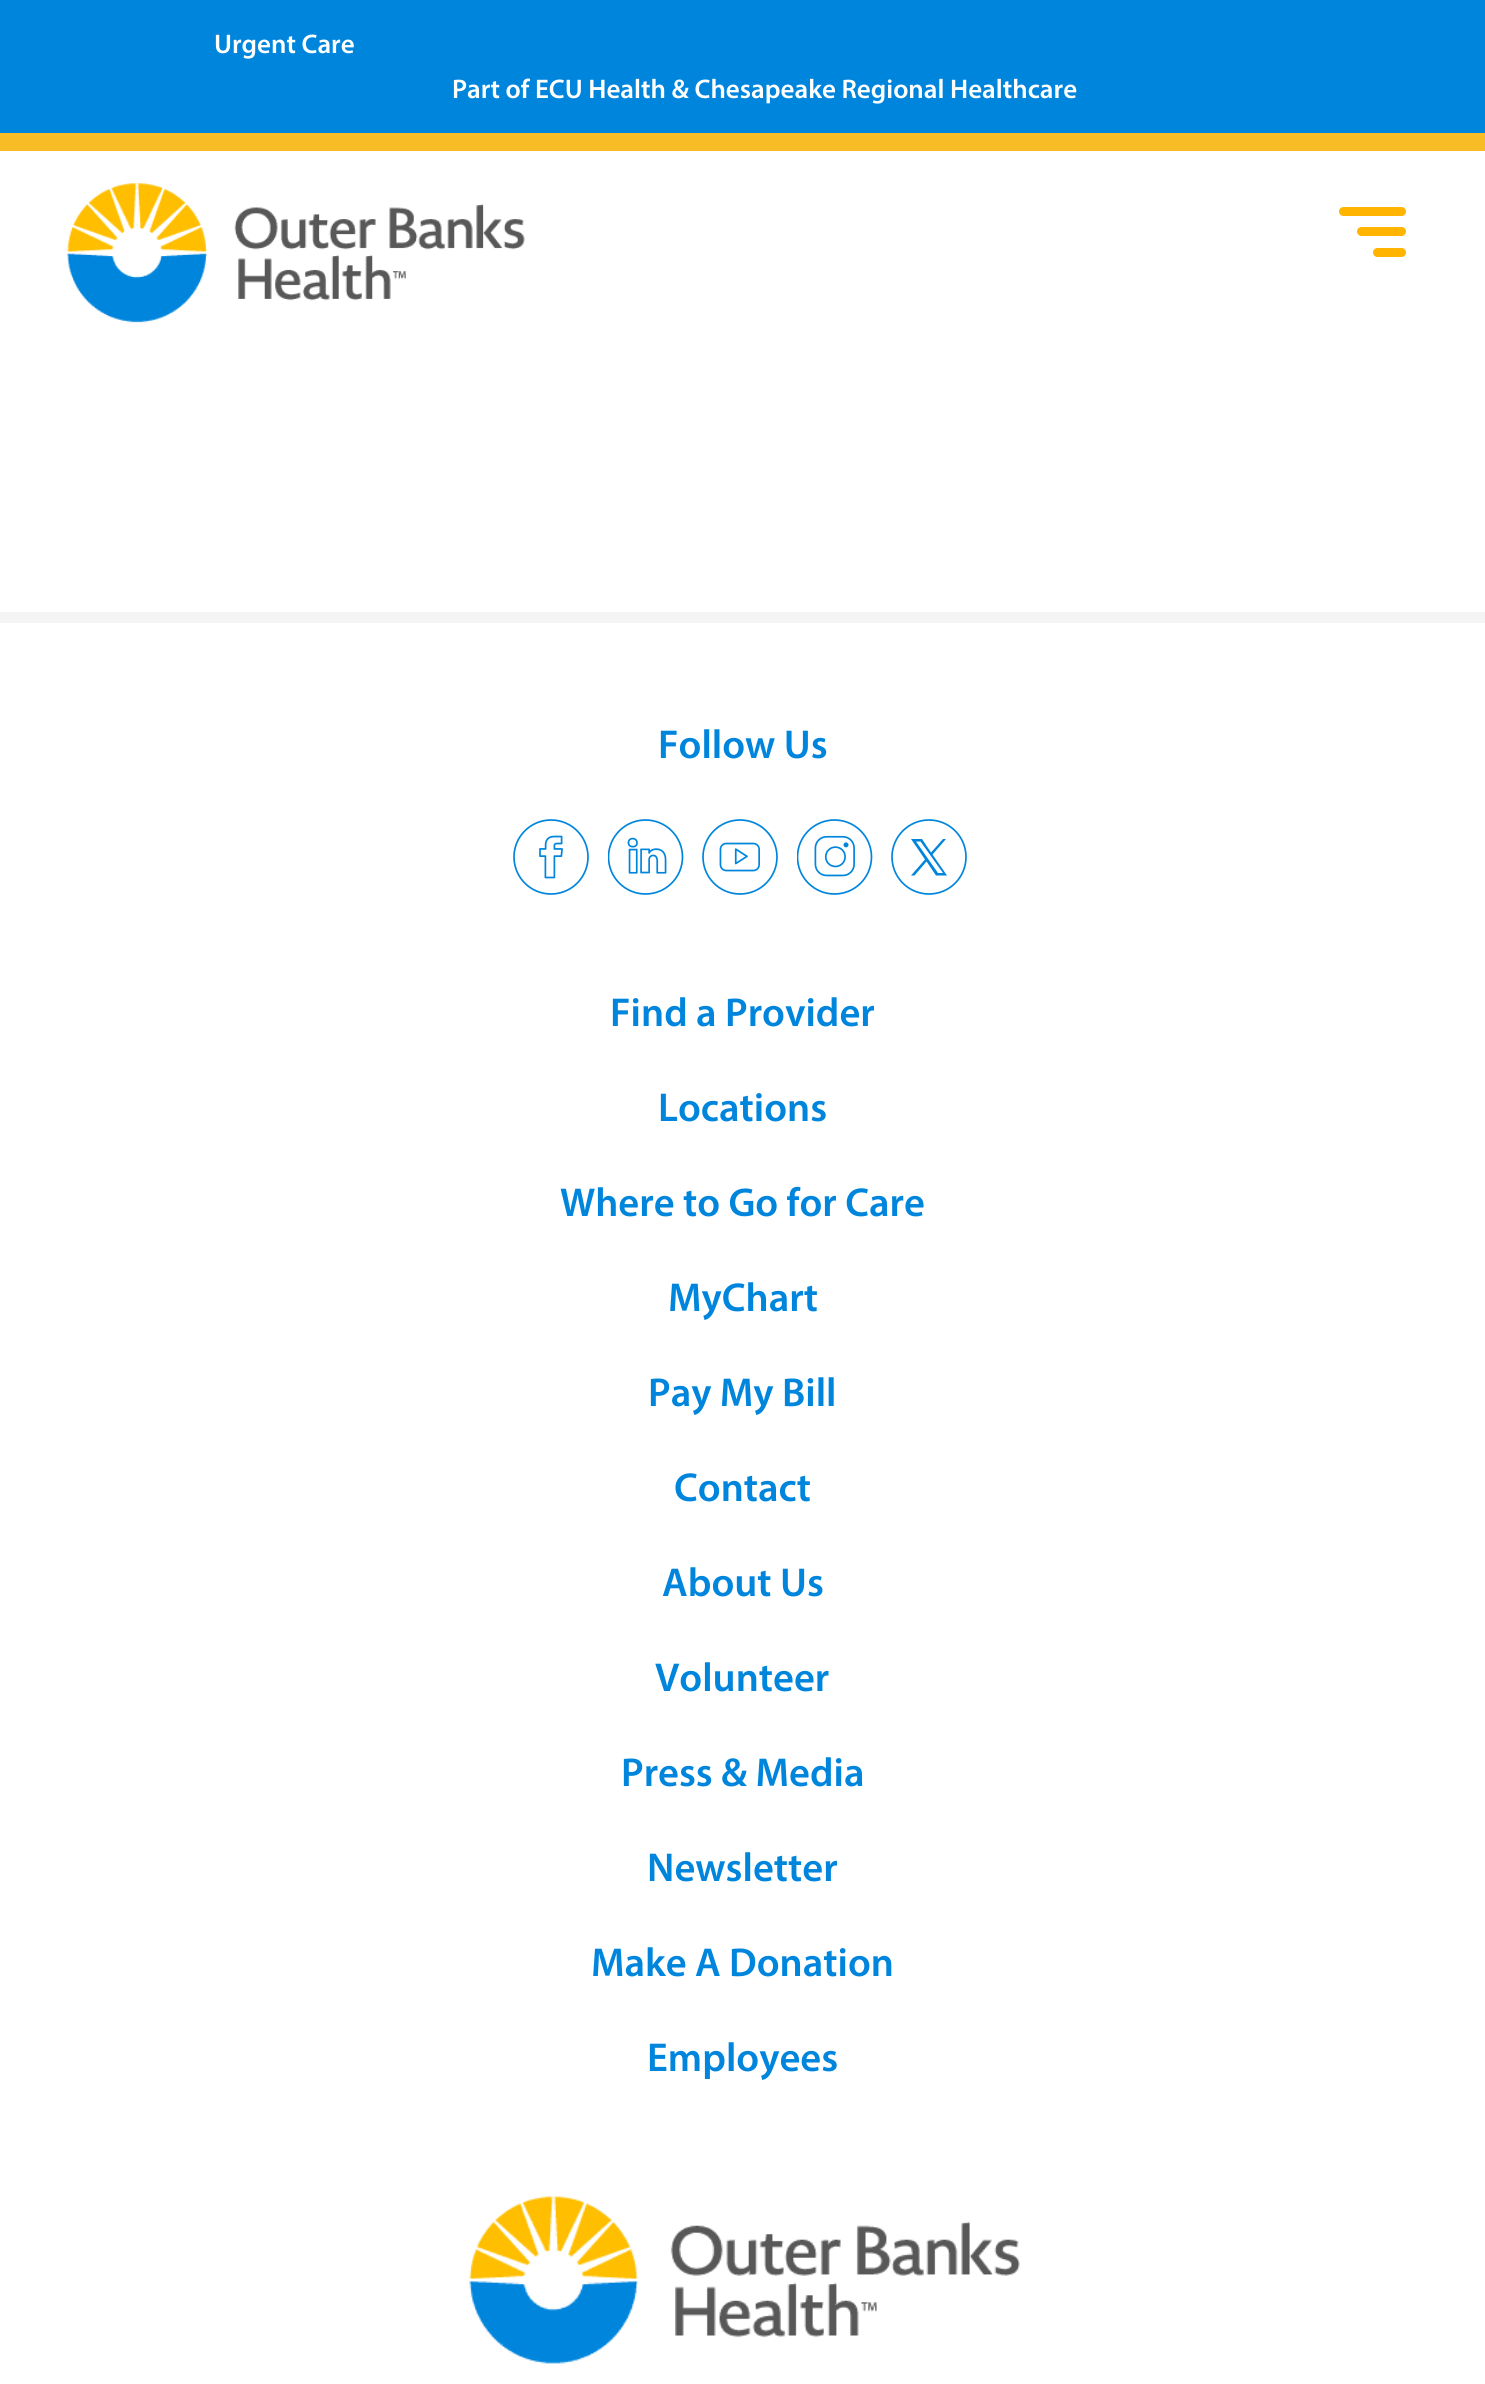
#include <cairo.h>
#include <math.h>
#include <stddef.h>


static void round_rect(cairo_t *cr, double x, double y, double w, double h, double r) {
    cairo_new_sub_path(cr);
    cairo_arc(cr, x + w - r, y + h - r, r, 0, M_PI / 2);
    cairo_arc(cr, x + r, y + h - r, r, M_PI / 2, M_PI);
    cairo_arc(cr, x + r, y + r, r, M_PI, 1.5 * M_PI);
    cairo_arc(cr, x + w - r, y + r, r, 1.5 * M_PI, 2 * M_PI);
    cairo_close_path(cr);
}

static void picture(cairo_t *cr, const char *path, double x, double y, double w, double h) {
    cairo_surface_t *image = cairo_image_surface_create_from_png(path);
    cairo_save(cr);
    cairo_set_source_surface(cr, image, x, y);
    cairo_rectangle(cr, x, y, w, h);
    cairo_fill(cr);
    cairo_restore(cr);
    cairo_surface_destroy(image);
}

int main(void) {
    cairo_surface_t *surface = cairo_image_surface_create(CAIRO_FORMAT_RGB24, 1485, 2384);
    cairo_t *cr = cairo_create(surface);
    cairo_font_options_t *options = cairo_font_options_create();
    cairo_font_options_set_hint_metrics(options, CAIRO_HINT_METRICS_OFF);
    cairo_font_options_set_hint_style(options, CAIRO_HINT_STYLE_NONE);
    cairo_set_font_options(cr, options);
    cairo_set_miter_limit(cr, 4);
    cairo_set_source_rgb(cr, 1, 1, 1);
    cairo_paint(cr);
    cairo_set_source_rgb(cr, 0, 0.522, 0.867);
    cairo_rectangle(cr, 0, 0, 1485, 133);
    cairo_fill(cr);
    cairo_set_source_rgb(cr, 0.965, 0.737, 0.149);
    cairo_rectangle(cr, 0, 133, 1485, 18);
    cairo_fill(cr);
    cairo_select_font_face(cr, "Myriad SemiBold", CAIRO_FONT_SLANT_NORMAL, CAIRO_FONT_WEIGHT_NORMAL);
    cairo_set_font_size(cr, 27);
    cairo_set_source_rgb(cr, 1, 1, 1);
    cairo_move_to(cr, 214, 53);
    cairo_show_text(cr, "Urgent Care");
    cairo_move_to(cr, 452, 98);
    cairo_show_text(cr, "Part of ECU Health & Chesapeake Regional Healthcare");
    picture(cr, "img1.png", 67, 183, 458, 140);
    cairo_set_source_rgb(cr, 1, 0.71, 0);
    round_rect(cr, 1339, 207, 67, 9, 4.5);
    cairo_fill(cr);
    round_rect(cr, 1357, 227, 49, 9, 4.5);
    cairo_fill(cr);
    round_rect(cr, 1373, 248, 33, 9, 4.5);
    cairo_fill(cr);
    cairo_set_source_rgb(cr, 0.957, 0.957, 0.957);
    cairo_rectangle(cr, 0, 612, 1485, 11);
    cairo_fill(cr);
    cairo_set_font_size(cr, 40.5);
    cairo_set_source_rgb(cr, 0, 0.522, 0.867);
    cairo_move_to(cr, 658, 758);
    cairo_show_text(cr, "Follow Us");
    picture(cr, "img2.png", 513, 819, 76, 76);
    picture(cr, "img3.png", 608, 819, 76, 76);
    picture(cr, "img4.png", 702, 819, 76, 76);
    picture(cr, "img5.png", 797, 819, 76, 76);
    cairo_arc(cr, 929, 857, 37, 0, 2 * M_PI);
    cairo_set_line_width(cr, 1.7);
    cairo_stroke(cr);
    cairo_new_path(cr);
    cairo_move_to(cr, 932.5, 854.5);
    cairo_line_to(cr, 946, 839);
    cairo_line_to(cr, 943, 839);
    cairo_line_to(cr, 931, 852.5);
    cairo_line_to(cr, 922, 839);
    cairo_line_to(cr, 911, 839);
    cairo_line_to(cr, 925, 859.5);
    cairo_line_to(cr, 911, 875.5);
    cairo_line_to(cr, 914.5, 875.5);
    cairo_line_to(cr, 926.5, 861.5);
    cairo_line_to(cr, 936, 875.5);
    cairo_line_to(cr, 947, 875.5);
    cairo_close_path(cr);
    cairo_move_to(cr, 928.5, 859.5);
    cairo_line_to(cr, 916, 841.5);
    cairo_line_to(cr, 920.5, 841.5);
    cairo_line_to(cr, 943, 873);
    cairo_line_to(cr, 938, 873);
    cairo_close_path(cr);
    cairo_fill(cr);
    cairo_move_to(cr, 610, 1026);
    cairo_show_text(cr, "Find a Provider");
    cairo_move_to(cr, 658, 1121);
    cairo_show_text(cr, "Locations");
    cairo_move_to(cr, 560, 1216);
    cairo_show_text(cr, "Where to Go for Care");
    cairo_move_to(cr, 668, 1311);
    cairo_show_text(cr, "MyChart");
    cairo_move_to(cr, 648, 1406);
    cairo_show_text(cr, "Pay My Bill");
    cairo_move_to(cr, 674, 1501);
    cairo_show_text(cr, "Contact");
    cairo_move_to(cr, 662, 1596);
    cairo_show_text(cr, "About Us");
    cairo_move_to(cr, 655, 1691);
    cairo_show_text(cr, "Volunteer");
    cairo_move_to(cr, 621, 1786);
    cairo_show_text(cr, "Press & Media");
    cairo_move_to(cr, 647, 1881);
    cairo_show_text(cr, "Newsletter");
    cairo_move_to(cr, 591, 1976);
    cairo_show_text(cr, "Make A Donation");
    cairo_move_to(cr, 647, 2071);
    cairo_show_text(cr, "Employees");
    picture(cr, "img6.png", 469, 2196, 551, 169);
    cairo_surface_write_to_png(surface, "page.png");
    cairo_font_options_destroy(options);
    cairo_destroy(cr);
    cairo_surface_destroy(surface);
    return 0;
}
